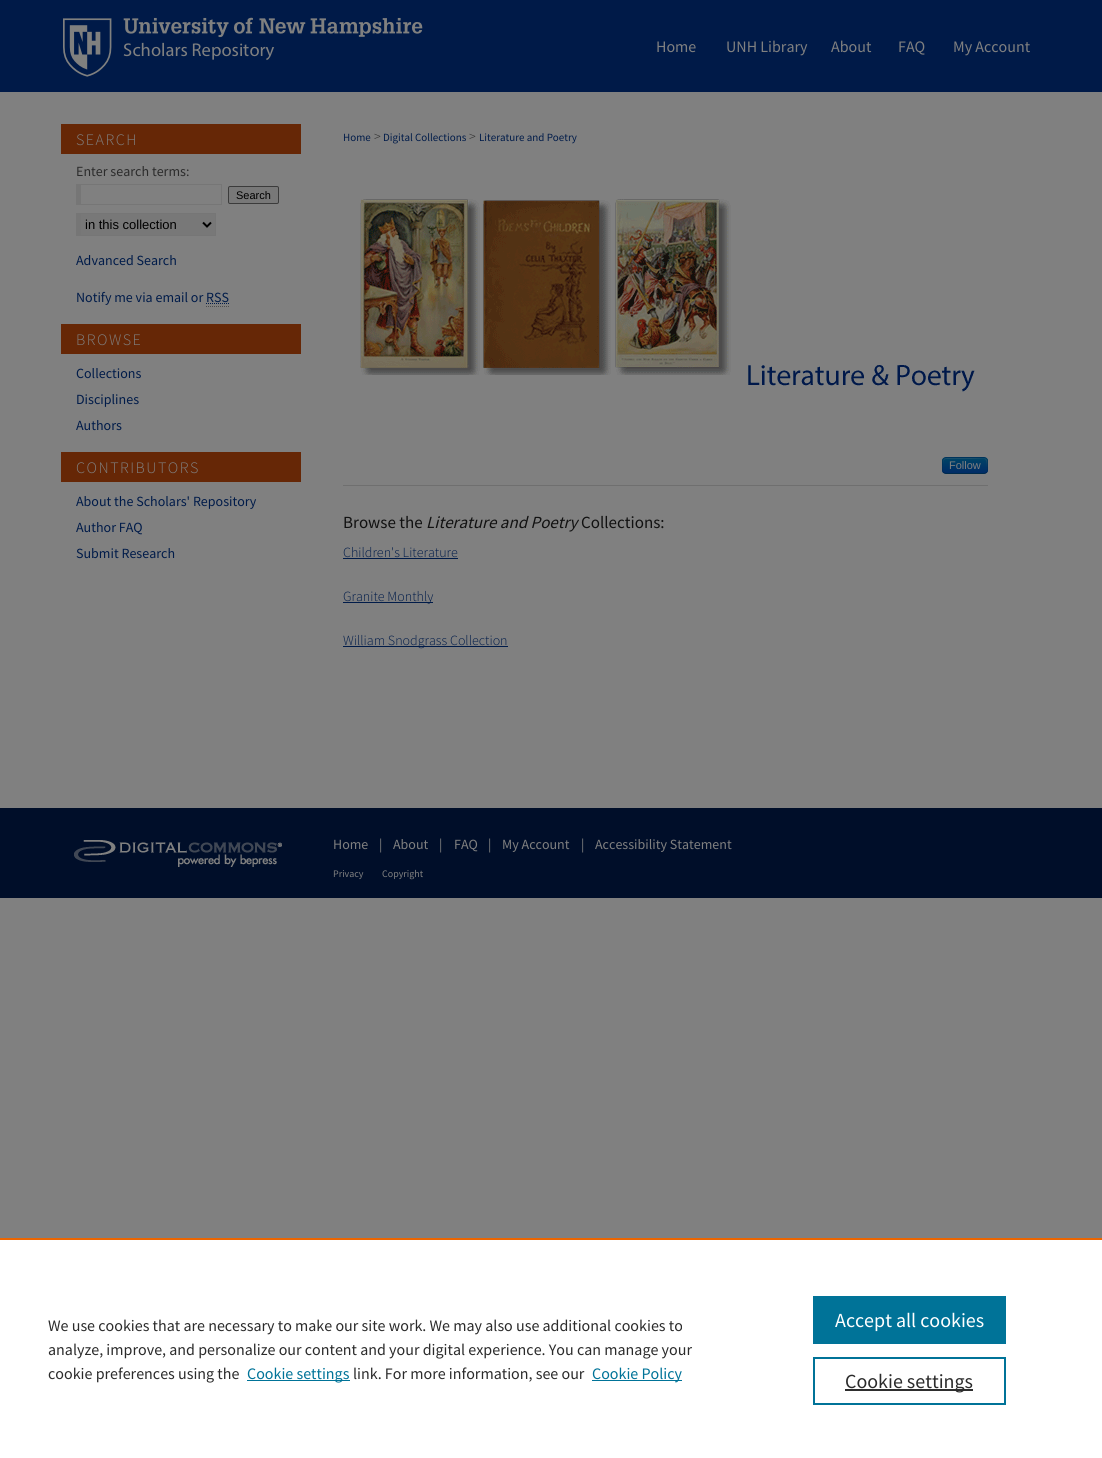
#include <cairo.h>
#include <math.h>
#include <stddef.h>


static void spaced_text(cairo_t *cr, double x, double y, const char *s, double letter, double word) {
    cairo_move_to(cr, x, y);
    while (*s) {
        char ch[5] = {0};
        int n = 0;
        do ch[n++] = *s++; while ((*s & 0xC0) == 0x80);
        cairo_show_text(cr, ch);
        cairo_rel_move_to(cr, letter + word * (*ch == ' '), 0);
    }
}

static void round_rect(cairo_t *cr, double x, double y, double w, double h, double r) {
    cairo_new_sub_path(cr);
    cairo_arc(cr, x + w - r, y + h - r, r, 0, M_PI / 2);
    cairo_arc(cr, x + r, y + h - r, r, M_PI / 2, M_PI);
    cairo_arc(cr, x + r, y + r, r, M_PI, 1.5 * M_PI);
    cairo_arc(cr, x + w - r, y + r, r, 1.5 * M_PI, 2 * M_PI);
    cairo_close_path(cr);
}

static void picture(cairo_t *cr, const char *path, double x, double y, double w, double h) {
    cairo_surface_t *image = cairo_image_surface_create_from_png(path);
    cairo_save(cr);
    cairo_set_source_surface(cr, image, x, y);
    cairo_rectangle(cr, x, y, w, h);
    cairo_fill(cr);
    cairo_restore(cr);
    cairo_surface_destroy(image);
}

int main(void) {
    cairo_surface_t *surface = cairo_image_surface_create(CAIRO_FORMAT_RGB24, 1102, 1458);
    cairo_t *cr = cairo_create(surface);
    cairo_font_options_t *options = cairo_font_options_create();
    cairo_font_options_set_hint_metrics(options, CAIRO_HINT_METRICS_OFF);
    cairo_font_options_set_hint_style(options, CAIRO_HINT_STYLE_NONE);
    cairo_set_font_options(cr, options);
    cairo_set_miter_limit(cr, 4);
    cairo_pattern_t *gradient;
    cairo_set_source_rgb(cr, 0.502, 0.502, 0.502);
    cairo_paint(cr);
    picture(cr, "img1.png", 0, 0, 1102, 898);
    picture(cr, "img2.png", 63, 17, 360, 60);
    cairo_select_font_face(cr, "Source Sans Pro", CAIRO_FONT_SLANT_NORMAL, CAIRO_FONT_WEIGHT_NORMAL);
    cairo_set_font_size(cr, 16);
    cairo_set_source_rgb(cr, 0.502, 0.502, 0.502);
    cairo_move_to(cr, 656, 52);
    cairo_show_text(cr, "Home");
    cairo_move_to(cr, 726, 52);
    cairo_show_text(cr, "UNH Library");
    cairo_move_to(cr, 831, 52);
    cairo_show_text(cr, "About");
    cairo_move_to(cr, 898, 52);
    cairo_show_text(cr, "FAQ");
    cairo_move_to(cr, 953, 52);
    cairo_show_text(cr, "My Account");
    cairo_set_source_rgb(cr, 0.4, 0.153, 0.024);
    cairo_rectangle(cr, 61, 124, 240, 30);
    cairo_fill(cr);
    cairo_select_font_face(cr, "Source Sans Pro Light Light", CAIRO_FONT_SLANT_NORMAL, CAIRO_FONT_WEIGHT_NORMAL);
    cairo_set_source_rgb(cr, 0.502, 0.502, 0.502);
    spaced_text(cr, 76, 145, "SEARCH", 1.5, 0);
    cairo_select_font_face(cr, "Source Sans Pro", CAIRO_FONT_SLANT_NORMAL, CAIRO_FONT_WEIGHT_NORMAL);
    cairo_set_font_size(cr, 14);
    cairo_set_source_rgb(cr, 0.169, 0.169, 0.169);
    cairo_move_to(cr, 76, 176);
    cairo_show_text(cr, "Enter search terms:");
    cairo_set_source_rgb(cr, 0.463, 0.463, 0.463);
    cairo_rectangle(cr, 76, 184, 146, 1);
    cairo_fill(cr);
    cairo_rectangle(cr, 221, 184, 1, 21);
    cairo_fill(cr);
    cairo_rectangle(cr, 76, 204, 146, 1);
    cairo_fill(cr);
    cairo_rectangle(cr, 76, 184, 5, 21);
    cairo_fill(cr);
    cairo_set_source_rgb(cr, 0.471, 0.471, 0.471);
    round_rect(cr, 228.5, 186.5, 50, 17, 1.5);
    cairo_fill_preserve(cr);
    cairo_set_source_rgb(cr, 0.231, 0.231, 0.231);
    cairo_set_line_width(cr, 1);
    cairo_stroke(cr);
    cairo_select_font_face(cr, "Liberation Sans", CAIRO_FONT_SLANT_NORMAL, CAIRO_FONT_WEIGHT_NORMAL);
    cairo_set_font_size(cr, 11);
    cairo_set_source_rgb(cr, 0, 0, 0);
    cairo_move_to(cr, 236, 199);
    cairo_show_text(cr, "Search");
    cairo_set_source_rgb(cr, 0.471, 0.471, 0.471);
    cairo_rectangle(cr, 81, 214, 134, 21);
    cairo_fill(cr);
    cairo_set_source_rgb(cr, 0.463, 0.463, 0.463);
    cairo_rectangle(cr, 76, 213, 140, 1);
    cairo_fill(cr);
    cairo_rectangle(cr, 215, 213, 1, 23);
    cairo_fill(cr);
    cairo_rectangle(cr, 76, 235, 140, 1);
    cairo_fill(cr);
    cairo_rectangle(cr, 76, 213, 5, 23);
    cairo_fill(cr);
    cairo_new_path(cr);
    cairo_move_to(cr, 203, 222.5);
    cairo_line_to(cr, 207, 226.5);
    cairo_line_to(cr, 211, 222.5);
    cairo_set_source_rgb(cr, 0, 0, 0);
    cairo_set_line_width(cr, 2);
    cairo_stroke(cr);
    cairo_set_font_size(cr, 13);
    cairo_move_to(cr, 85, 229);
    cairo_show_text(cr, "in this collection");
    cairo_select_font_face(cr, "Source Sans Pro", CAIRO_FONT_SLANT_NORMAL, CAIRO_FONT_WEIGHT_NORMAL);
    cairo_set_font_size(cr, 14);
    cairo_set_source_rgb(cr, 0, 0.106, 0.286);
    cairo_move_to(cr, 76, 265);
    cairo_show_text(cr, "Advanced Search");
    cairo_move_to(cr, 76, 302);
    cairo_show_text(cr, "Notify me via email or RSS");
    cairo_new_path(cr);
    cairo_move_to(cr, 206, 303.5);
    cairo_line_to(cr, 229, 303.5);
    cairo_set_line_width(cr, 1);
    cairo_set_dash(cr, (double[]){1, 1}, 2, 0);
    cairo_stroke(cr);
    cairo_new_path(cr);
    cairo_move_to(cr, 206, 306.5);
    cairo_line_to(cr, 229, 306.5);
    cairo_set_source_rgb(cr, 0.302, 0.302, 0.302);
    cairo_stroke(cr);
    cairo_set_source_rgb(cr, 0.4, 0.153, 0.024);
    cairo_rectangle(cr, 61, 324, 240, 30);
    cairo_fill(cr);
    cairo_select_font_face(cr, "Source Sans Pro Light Light", CAIRO_FONT_SLANT_NORMAL, CAIRO_FONT_WEIGHT_NORMAL);
    cairo_set_font_size(cr, 16);
    cairo_set_source_rgb(cr, 0.502, 0.502, 0.502);
    spaced_text(cr, 76, 345, "BROWSE", 1.5, 0);
    cairo_select_font_face(cr, "Source Sans Pro", CAIRO_FONT_SLANT_NORMAL, CAIRO_FONT_WEIGHT_NORMAL);
    cairo_set_font_size(cr, 14);
    cairo_set_source_rgb(cr, 0, 0.106, 0.286);
    cairo_move_to(cr, 76, 378);
    cairo_show_text(cr, "Collections");
    cairo_move_to(cr, 76, 404);
    cairo_show_text(cr, "Disciplines");
    cairo_move_to(cr, 76, 430);
    cairo_show_text(cr, "Authors");
    cairo_set_source_rgb(cr, 0.4, 0.153, 0.024);
    cairo_rectangle(cr, 61, 452, 240, 30);
    cairo_fill(cr);
    cairo_select_font_face(cr, "Source Sans Pro Light Light", CAIRO_FONT_SLANT_NORMAL, CAIRO_FONT_WEIGHT_NORMAL);
    cairo_set_font_size(cr, 16);
    cairo_set_source_rgb(cr, 0.502, 0.502, 0.502);
    spaced_text(cr, 76, 473, "CONTRIBUTORS", 1.5, 0);
    cairo_select_font_face(cr, "Source Sans Pro", CAIRO_FONT_SLANT_NORMAL, CAIRO_FONT_WEIGHT_NORMAL);
    cairo_set_font_size(cr, 14);
    cairo_set_source_rgb(cr, 0, 0.106, 0.286);
    cairo_move_to(cr, 76, 506);
    cairo_show_text(cr, "About the Scholars' Repository");
    cairo_move_to(cr, 76, 532);
    cairo_show_text(cr, "Author FAQ");
    cairo_move_to(cr, 76, 558);
    cairo_show_text(cr, "Submit Research");
    cairo_set_font_size(cr, 11);
    cairo_move_to(cr, 343, 141);
    cairo_show_text(cr, "Home");
    cairo_select_font_face(cr, "Source Sans Pro Light Light", CAIRO_FONT_SLANT_NORMAL, CAIRO_FONT_WEIGHT_NORMAL);
    cairo_set_font_size(cr, 14);
    cairo_set_source_rgb(cr, 0.169, 0.169, 0.169);
    cairo_move_to(cr, 374, 141);
    cairo_show_text(cr, ">");
    cairo_select_font_face(cr, "Source Sans Pro", CAIRO_FONT_SLANT_NORMAL, CAIRO_FONT_WEIGHT_NORMAL);
    cairo_set_font_size(cr, 11);
    cairo_set_source_rgb(cr, 0, 0.106, 0.286);
    cairo_move_to(cr, 383, 141);
    cairo_show_text(cr, "Digital Collections");
    cairo_select_font_face(cr, "Source Sans Pro Light Light", CAIRO_FONT_SLANT_NORMAL, CAIRO_FONT_WEIGHT_NORMAL);
    cairo_set_font_size(cr, 14);
    cairo_set_source_rgb(cr, 0.169, 0.169, 0.169);
    cairo_move_to(cr, 469, 141);
    cairo_show_text(cr, ">");
    cairo_select_font_face(cr, "Source Sans Pro", CAIRO_FONT_SLANT_NORMAL, CAIRO_FONT_WEIGHT_NORMAL);
    cairo_set_font_size(cr, 11);
    cairo_set_source_rgb(cr, 0, 0.106, 0.286);
    cairo_move_to(cr, 479, 141);
    cairo_show_text(cr, "Literature and Poetry");
    picture(cr, "img3.png", 360, 199, 615, 193);
    cairo_set_source_rgb(cr, 0.435, 0.435, 0.435);
    cairo_rectangle(cr, 343, 485, 645, 1);
    cairo_fill(cr);
    cairo_set_source_rgb(cr, 0, 0.227, 0.4);
    round_rect(cr, 942, 457, 46, 17, 4);
    cairo_fill(cr);
    cairo_save(cr);
    round_rect(cr, 942, 457, 46, 17, 4);
    cairo_clip(cr);
    gradient = cairo_pattern_create_linear(965, 458, 965, 473);
    cairo_pattern_add_color_stop_rgba(gradient, 0, 0, 0.267, 0.4, 1);
    cairo_pattern_add_color_stop_rgba(gradient, 1, 0, 0.169, 0.4, 1);
    cairo_set_source(cr, gradient);
    cairo_pattern_destroy(gradient);
    cairo_rectangle(cr, 942, 458, 46, 15);
    cairo_fill(cr);
    cairo_restore(cr);
    cairo_set_source_rgba(cr, 0.502, 0.502, 0.502, 0.2);
    cairo_new_path(cr);
    cairo_move_to(cr, 946, 459);
    cairo_line_to(cr, 971, 459);
    cairo_curve_to(cr, 985, 459, 987, 455, 987, 470);
    cairo_curve_to(cr, 987, 459, 990, 458, 978, 458);
    cairo_line_to(cr, 952, 458);
    cairo_curve_to(cr, 945, 458, 943, 457, 943, 464);
    cairo_line_to(cr, 943, 471);
    cairo_curve_to(cr, 943, 468, 942, 459, 946, 459);
    cairo_close_path(cr);
    cairo_fill(cr);
    cairo_new_path(cr);
    cairo_move_to(cr, 986.5, 472.5);
    cairo_curve_to(cr, 986, 473, 985, 473.5, 984, 473.5);
    cairo_line_to(cr, 946, 473.5);
    cairo_curve_to(cr, 945, 473.5, 944, 473, 943.5, 472.5);
    cairo_set_source_rgba(cr, 0, 0, 0, 0.25);
    cairo_set_dash(cr, NULL, 0, 0);
    cairo_stroke(cr);
    cairo_new_path(cr);
    cairo_move_to(cr, 943.5, 472.5);
    cairo_curve_to(cr, 942, 470.5, 942.5, 467.5, 942.5, 465.5);
    cairo_curve_to(cr, 942.5, 456.5, 943, 457.5, 952.5, 457.5);
    cairo_line_to(cr, 977.5, 457.5);
    cairo_curve_to(cr, 987, 457.5, 987.5, 456.5, 987.5, 465.5);
    cairo_curve_to(cr, 987.5, 467.5, 988, 470.5, 986.5, 472.5);
    cairo_set_source_rgba(cr, 0, 0, 0, 0.1);
    cairo_stroke(cr);
    cairo_select_font_face(cr, "Liberation Sans", CAIRO_FONT_SLANT_NORMAL, CAIRO_FONT_WEIGHT_NORMAL);
    cairo_set_source_rgb(cr, 0.502, 0.502, 0.502);
    cairo_move_to(cr, 949, 469);
    cairo_show_text(cr, "Follow");
    cairo_select_font_face(cr, "Source Sans Pro", CAIRO_FONT_SLANT_NORMAL, CAIRO_FONT_WEIGHT_NORMAL);
    cairo_set_font_size(cr, 17);
    cairo_set_source_rgb(cr, 0.067, 0.067, 0.067);
    cairo_move_to(cr, 343, 528);
    cairo_show_text(cr, "Browse the");
    cairo_select_font_face(cr, "Source Sans Pro", CAIRO_FONT_SLANT_ITALIC, CAIRO_FONT_WEIGHT_NORMAL);
    cairo_move_to(cr, 426, 528);
    cairo_show_text(cr, "Literature and Poetry");
    cairo_select_font_face(cr, "Source Sans Pro", CAIRO_FONT_SLANT_NORMAL, CAIRO_FONT_WEIGHT_NORMAL);
    cairo_move_to(cr, 581, 528);
    cairo_show_text(cr, "Collections:");
    cairo_select_font_face(cr, "Source Sans Pro Light Light", CAIRO_FONT_SLANT_NORMAL, CAIRO_FONT_WEIGHT_NORMAL);
    cairo_set_font_size(cr, 14);
    cairo_set_source_rgb(cr, 0, 0.106, 0.286);
    cairo_move_to(cr, 343, 557);
    cairo_show_text(cr, "Children's Literature");
    cairo_rectangle(cr, 343, 558, 115, 1);
    cairo_fill(cr);
    cairo_rectangle(cr, 343, 602, 90, 1);
    cairo_fill(cr);
    cairo_move_to(cr, 343, 601);
    cairo_show_text(cr, "Granite Monthly");
    cairo_rectangle(cr, 343, 646, 165, 1);
    cairo_fill(cr);
    cairo_move_to(cr, 343, 645);
    cairo_show_text(cr, "William Snodgrass Collection");
    picture(cr, "img4.png", 74, 840, 208, 27);
    cairo_select_font_face(cr, "Source Sans Pro", CAIRO_FONT_SLANT_NORMAL, CAIRO_FONT_WEIGHT_NORMAL);
    cairo_set_source_rgb(cr, 0.502, 0.502, 0.502);
    cairo_move_to(cr, 333, 849);
    cairo_show_text(cr, "Home");
    cairo_move_to(cr, 379, 849);
    cairo_show_text(cr, "|");
    cairo_move_to(cr, 393, 849);
    cairo_show_text(cr, "About");
    cairo_move_to(cr, 439, 849);
    cairo_show_text(cr, "|");
    cairo_move_to(cr, 454, 849);
    cairo_show_text(cr, "FAQ");
    cairo_move_to(cr, 488, 849);
    cairo_show_text(cr, "|");
    cairo_move_to(cr, 502, 849);
    cairo_show_text(cr, "My Account");
    cairo_move_to(cr, 581, 849);
    cairo_show_text(cr, "|");
    cairo_move_to(cr, 595, 849);
    cairo_show_text(cr, "Accessibility Statement");
    cairo_set_font_size(cr, 10);
    cairo_move_to(cr, 333, 877);
    cairo_show_text(cr, "Privacy");
    cairo_move_to(cr, 382, 877);
    cairo_show_text(cr, "Copyright");
    cairo_set_source_rgb(cr, 1, 1, 1);
    cairo_rectangle(cr, 0, 1240, 1102, 218);
    cairo_fill(cr);
    cairo_set_source_rgb(cr, 0.922, 0.396, 0);
    cairo_rectangle(cr, 0, 1238, 1102, 2);
    cairo_fill(cr);
    cairo_set_font_size(cr, 16);
    cairo_set_source_rgb(cr, 0.169, 0.169, 0.169);
    cairo_move_to(cr, 48, 1331);
    cairo_show_text(cr, "We use cookies that are necessary to make our site work. We may also use additional cookies to");
    cairo_move_to(cr, 48, 1355);
    cairo_show_text(cr, "analyze, improve, and personalize our content and your digital experience. You can manage your");
    cairo_move_to(cr, 48, 1379);
    cairo_show_text(cr, "cookie preferences using the");
    cairo_set_source_rgb(cr, 0, 0.451, 0.596);
    cairo_rectangle(cr, 247, 1380, 103, 1);
    cairo_fill(cr);
    cairo_move_to(cr, 247, 1379);
    cairo_show_text(cr, "Cookie settings");
    cairo_set_source_rgb(cr, 0.169, 0.169, 0.169);
    cairo_move_to(cr, 353, 1379);
    cairo_show_text(cr, "link. For more information, see our");
    cairo_set_source_rgb(cr, 0, 0.451, 0.596);
    cairo_rectangle(cr, 592, 1380, 90, 1);
    cairo_fill(cr);
    cairo_move_to(cr, 592, 1379);
    cairo_show_text(cr, "Cookie Policy");
    cairo_rectangle(cr, 813, 1296, 193, 48);
    cairo_fill(cr);
    cairo_set_font_size(cr, 20);
    cairo_set_source_rgb(cr, 1, 1, 1);
    cairo_move_to(cr, 835, 1327);
    cairo_show_text(cr, "Accept all cookies");
    cairo_rectangle(cr, 814, 1358, 191, 46);
    cairo_set_source_rgb(cr, 0, 0.451, 0.596);
    cairo_set_line_width(cr, 2);
    cairo_stroke(cr);
    cairo_set_source_rgb(cr, 0.18, 0.18, 0.18);
    cairo_rectangle(cr, 845, 1389, 128, 2);
    cairo_fill(cr);
    cairo_set_source_rgb(cr, 0.169, 0.169, 0.169);
    cairo_move_to(cr, 845, 1388);
    cairo_show_text(cr, "Cookie settings");
    cairo_surface_write_to_png(surface, "page.png");
    cairo_font_options_destroy(options);
    cairo_destroy(cr);
    cairo_surface_destroy(surface);
    return 0;
}
